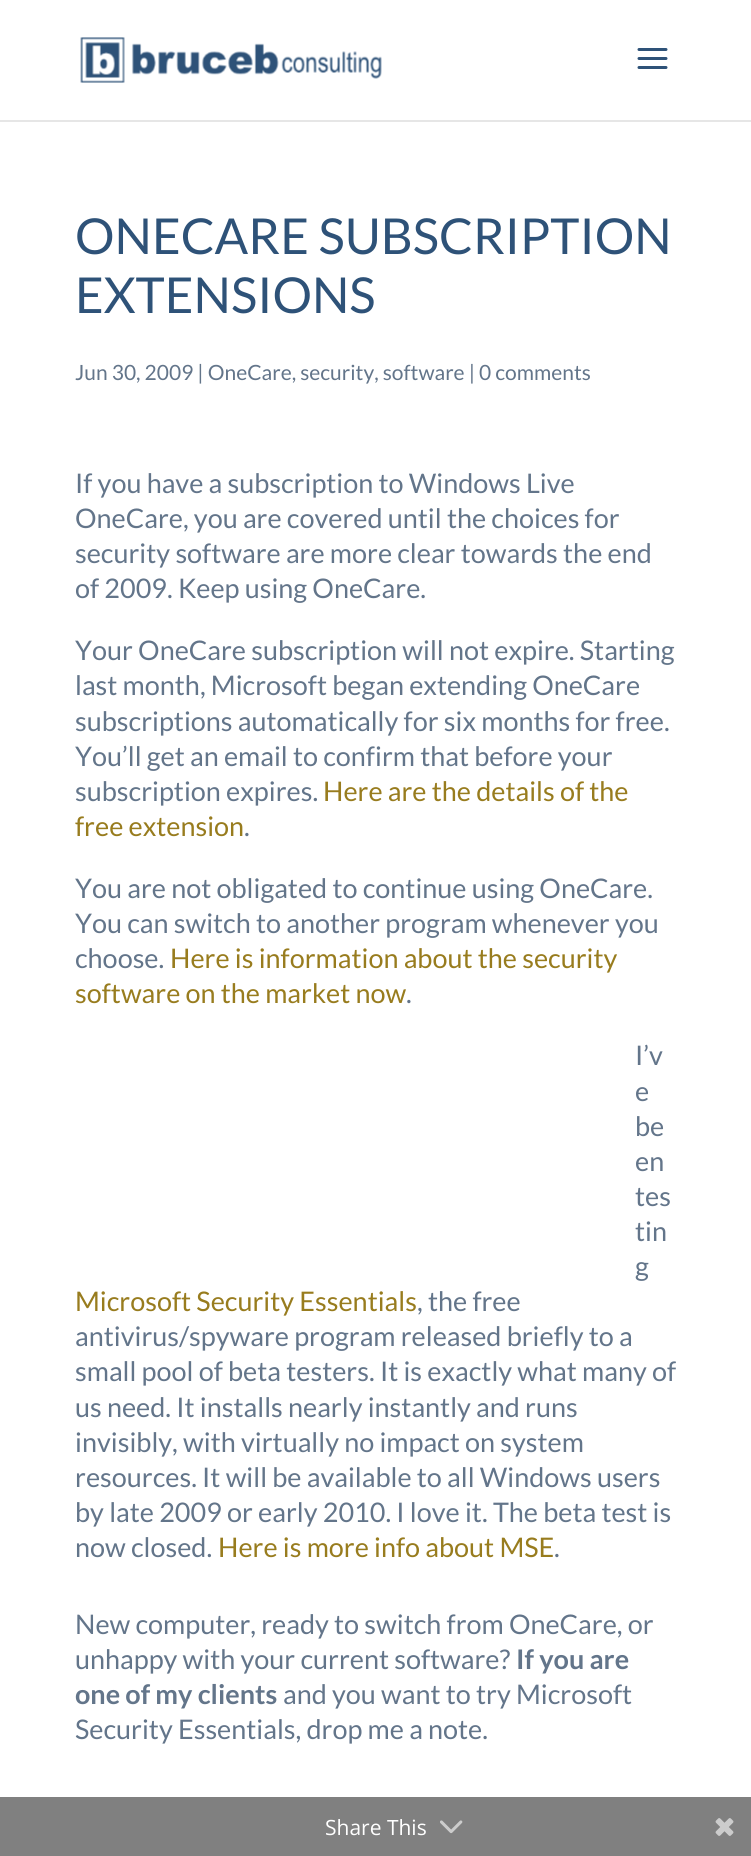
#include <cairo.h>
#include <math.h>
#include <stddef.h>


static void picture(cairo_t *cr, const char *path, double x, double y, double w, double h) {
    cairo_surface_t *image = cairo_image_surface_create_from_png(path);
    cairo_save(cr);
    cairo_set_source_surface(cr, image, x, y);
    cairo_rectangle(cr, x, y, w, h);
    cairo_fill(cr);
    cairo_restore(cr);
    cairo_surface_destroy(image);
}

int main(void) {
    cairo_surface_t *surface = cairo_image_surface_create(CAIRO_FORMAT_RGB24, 751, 1856);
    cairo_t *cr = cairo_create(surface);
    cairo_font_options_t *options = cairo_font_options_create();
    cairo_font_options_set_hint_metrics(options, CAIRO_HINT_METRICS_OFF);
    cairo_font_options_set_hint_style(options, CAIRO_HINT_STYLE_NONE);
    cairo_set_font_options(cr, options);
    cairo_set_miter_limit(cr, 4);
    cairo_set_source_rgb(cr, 1, 1, 1);
    cairo_paint(cr);
    cairo_set_source_rgb(cr, 0.902, 0.902, 0.902);
    cairo_new_path(cr);
    cairo_move_to(cr, 0, 120);
    cairo_line_to(cr, 0, 122);
    cairo_line_to(cr, 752, 122);
    cairo_line_to(cr, 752, 2);
    cairo_line_to(cr, 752, 120);
    cairo_close_path(cr);
    cairo_fill(cr);
    picture(cr, "img1.png", 80, 37, 302, 46);
    picture(cr, "img2.png", 637, 48, 31, 21);
    cairo_select_font_face(cr, "Lato", CAIRO_FONT_SLANT_NORMAL, CAIRO_FONT_WEIGHT_NORMAL);
    cairo_set_font_size(cr, 49.5);
    cairo_set_source_rgb(cr, 0.18, 0.322, 0.471);
    cairo_move_to(cr, 75, 254);
    cairo_show_text(cr, "ONECARE SUBSCRIPTION");
    cairo_move_to(cr, 75, 313);
    cairo_show_text(cr, "EXTENSIONS");
    cairo_set_font_size(cr, 21);
    cairo_set_source_rgb(cr, 0.388, 0.459, 0.541);
    cairo_move_to(cr, 75, 380);
    cairo_show_text(cr, "Jun 30, 2009 | OneCare, security, software | 0 comments");
    cairo_set_font_size(cr, 27);
    cairo_move_to(cr, 75, 493);
    cairo_show_text(cr, "If you have a subscription to Windows Live");
    cairo_move_to(cr, 75, 528);
    cairo_show_text(cr, "OneCare, you are covered until the choices for");
    cairo_move_to(cr, 75, 563);
    cairo_show_text(cr, "security software are more clear towards the end");
    cairo_move_to(cr, 75, 598);
    cairo_show_text(cr, "of 2009. Keep using OneCare.");
    cairo_move_to(cr, 75, 660);
    cairo_show_text(cr, "Your OneCare subscription will not expire. Starting");
    cairo_move_to(cr, 75, 695);
    cairo_show_text(cr, "last month, Microsoft began extending OneCare");
    cairo_move_to(cr, 75, 731);
    cairo_show_text(cr, "subscriptions automatically for six months for free.");
    cairo_move_to(cr, 75, 766);
    cairo_show_text(cr, "You’ll get an email to confirm that before your");
    cairo_move_to(cr, 75, 801);
    cairo_show_text(cr, "subscription expires.");
    cairo_set_source_rgb(cr, 0.596, 0.486, 0.118);
    cairo_move_to(cr, 323, 801);
    cairo_show_text(cr, "Here are the details of the");
    cairo_move_to(cr, 75, 836);
    cairo_show_text(cr, "free extension");
    cairo_set_source_rgb(cr, 0.388, 0.459, 0.541);
    cairo_move_to(cr, 244, 836);
    cairo_show_text(cr, ".");
    cairo_move_to(cr, 75, 898);
    cairo_show_text(cr, "You are not obligated to continue using OneCare.");
    cairo_move_to(cr, 75, 933);
    cairo_show_text(cr, "You can switch to another program whenever you");
    cairo_move_to(cr, 75, 968);
    cairo_show_text(cr, "choose.");
    cairo_set_source_rgb(cr, 0.596, 0.486, 0.118);
    cairo_move_to(cr, 170, 968);
    cairo_show_text(cr, "Here is information about the security");
    cairo_move_to(cr, 75, 1003);
    cairo_show_text(cr, "software on the market now");
    cairo_set_source_rgb(cr, 0.388, 0.459, 0.541);
    cairo_move_to(cr, 406, 1003);
    cairo_show_text(cr, ".");
    cairo_move_to(cr, 635, 1065);
    cairo_show_text(cr, "I’v");
    cairo_move_to(cr, 635, 1101);
    cairo_show_text(cr, "e");
    cairo_move_to(cr, 635, 1136);
    cairo_show_text(cr, "be");
    cairo_move_to(cr, 635, 1171);
    cairo_show_text(cr, "en");
    cairo_move_to(cr, 635, 1206);
    cairo_show_text(cr, "tes");
    cairo_move_to(cr, 635, 1241);
    cairo_show_text(cr, "tin");
    cairo_move_to(cr, 635, 1276);
    cairo_show_text(cr, "g");
    cairo_set_source_rgb(cr, 0.596, 0.486, 0.118);
    cairo_move_to(cr, 75, 1311);
    cairo_show_text(cr, "Microsoft Security Essentials");
    cairo_set_source_rgb(cr, 0.388, 0.459, 0.541);
    cairo_move_to(cr, 417, 1311);
    cairo_show_text(cr, ", the free");
    cairo_move_to(cr, 75, 1346);
    cairo_show_text(cr, "antivirus/spyware program released briefly to a");
    cairo_move_to(cr, 75, 1381);
    cairo_show_text(cr, "small pool of beta testers. It is exactly what many of");
    cairo_move_to(cr, 75, 1417);
    cairo_show_text(cr, "us need. It installs nearly instantly and runs");
    cairo_move_to(cr, 75, 1452);
    cairo_show_text(cr, "invisibly, with virtually no impact on system");
    cairo_move_to(cr, 75, 1487);
    cairo_show_text(cr, "resources. It will be available to all Windows users");
    cairo_move_to(cr, 75, 1522);
    cairo_show_text(cr, "by late 2009 or early 2010. I love it. The beta test is");
    cairo_move_to(cr, 75, 1557);
    cairo_show_text(cr, "now closed.");
    cairo_set_source_rgb(cr, 0.596, 0.486, 0.118);
    cairo_move_to(cr, 218, 1557);
    cairo_show_text(cr, "Here is more info about MSE");
    cairo_set_source_rgb(cr, 0.388, 0.459, 0.541);
    cairo_move_to(cr, 554, 1557);
    cairo_show_text(cr, ".");
    cairo_move_to(cr, 75, 1634);
    cairo_show_text(cr, "New computer, ready to switch from OneCare, or");
    cairo_move_to(cr, 75, 1669);
    cairo_show_text(cr, "unhappy with your current software?");
    cairo_select_font_face(cr, "Lato", CAIRO_FONT_SLANT_NORMAL, CAIRO_FONT_WEIGHT_BOLD);
    cairo_move_to(cr, 516, 1669);
    cairo_show_text(cr, "If you are");
    cairo_move_to(cr, 75, 1704);
    cairo_show_text(cr, "one of my clients");
    cairo_select_font_face(cr, "Lato", CAIRO_FONT_SLANT_NORMAL, CAIRO_FONT_WEIGHT_NORMAL);
    cairo_move_to(cr, 283, 1704);
    cairo_show_text(cr, "and you want to try Microsoft");
    cairo_move_to(cr, 75, 1739);
    cairo_show_text(cr, "Security Essentials, drop me a note.");
    cairo_set_source_rgb(cr, 0.502, 0.502, 0.502);
    cairo_rectangle(cr, 0, 1797, 751, 59);
    cairo_fill(cr);
    cairo_select_font_face(cr, "Open Sans", CAIRO_FONT_SLANT_NORMAL, CAIRO_FONT_WEIGHT_NORMAL);
    cairo_set_font_size(cr, 21);
    cairo_set_source_rgb(cr, 1, 1, 1);
    cairo_move_to(cr, 325, 1835);
    cairo_show_text(cr, "Share This");
    picture(cr, "img3.png", 440, 1820, 23, 14);
    picture(cr, "img4.png", 715, 1818, 19, 18);
    cairo_surface_write_to_png(surface, "page.png");
    cairo_font_options_destroy(options);
    cairo_destroy(cr);
    cairo_surface_destroy(surface);
    return 0;
}
